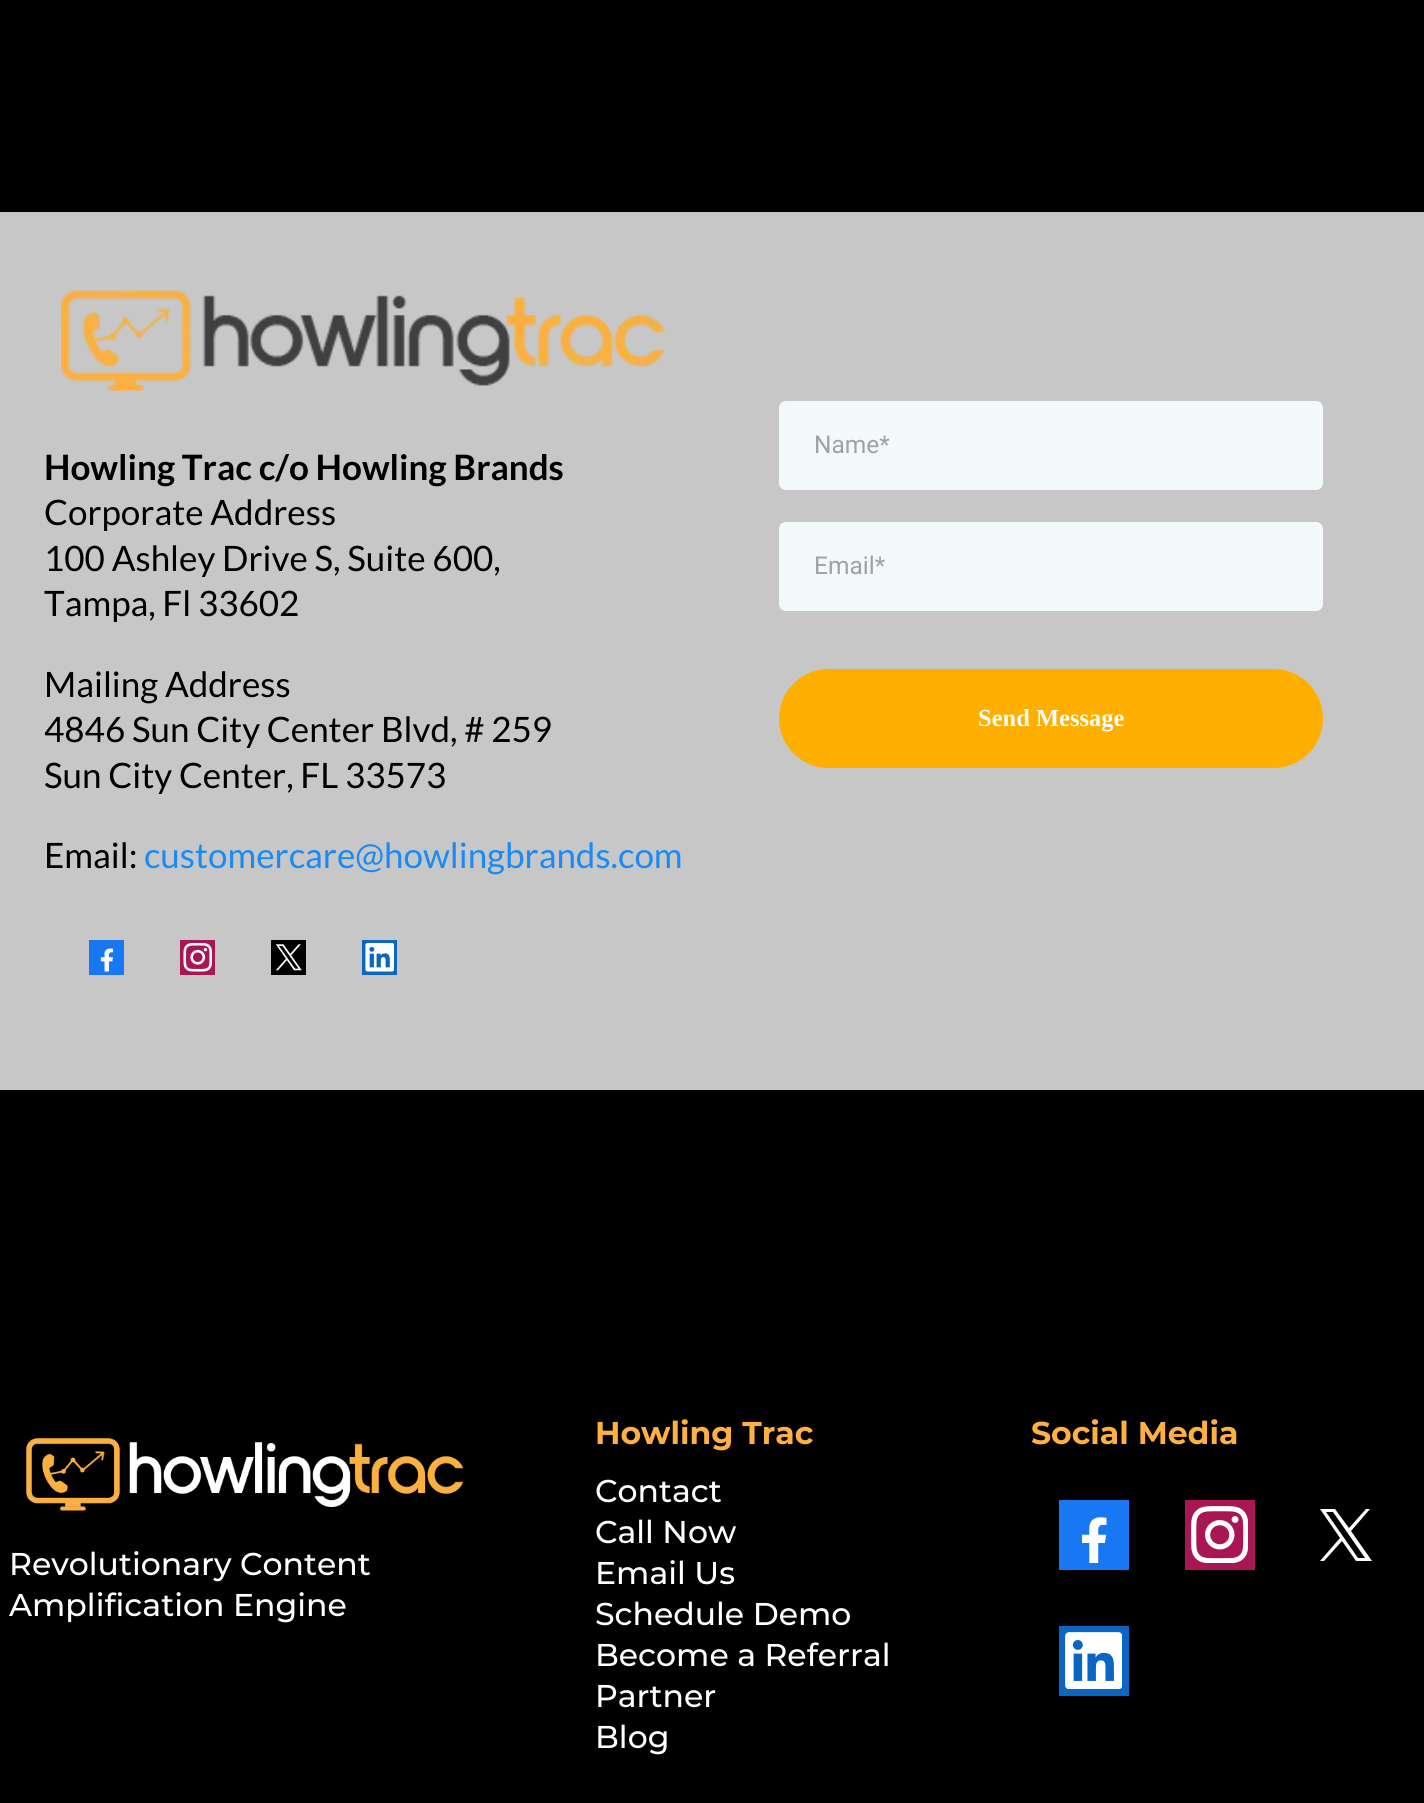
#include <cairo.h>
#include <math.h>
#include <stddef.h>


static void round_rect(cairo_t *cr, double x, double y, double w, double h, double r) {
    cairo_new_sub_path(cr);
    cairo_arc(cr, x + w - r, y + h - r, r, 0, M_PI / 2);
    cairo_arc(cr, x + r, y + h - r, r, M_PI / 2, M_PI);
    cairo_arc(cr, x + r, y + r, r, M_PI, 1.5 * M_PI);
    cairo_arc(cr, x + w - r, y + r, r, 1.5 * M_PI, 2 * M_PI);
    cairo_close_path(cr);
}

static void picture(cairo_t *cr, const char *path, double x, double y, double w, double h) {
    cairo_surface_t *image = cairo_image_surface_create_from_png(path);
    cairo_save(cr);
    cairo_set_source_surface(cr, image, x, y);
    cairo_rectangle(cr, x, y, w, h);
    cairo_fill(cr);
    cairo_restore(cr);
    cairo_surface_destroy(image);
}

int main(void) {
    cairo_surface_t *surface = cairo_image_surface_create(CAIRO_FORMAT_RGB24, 1424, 1803);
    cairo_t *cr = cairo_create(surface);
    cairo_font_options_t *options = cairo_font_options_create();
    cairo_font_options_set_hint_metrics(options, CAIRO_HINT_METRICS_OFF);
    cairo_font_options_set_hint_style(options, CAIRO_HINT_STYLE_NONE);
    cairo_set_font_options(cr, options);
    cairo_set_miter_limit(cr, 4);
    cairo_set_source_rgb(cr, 0, 0, 0);
    cairo_paint(cr);
    cairo_set_source_rgb(cr, 0.78, 0.78, 0.78);
    cairo_rectangle(cr, 0, 212, 1424, 878);
    cairo_fill(cr);
    picture(cr, "img1.png", 61, 290, 605, 101);
    cairo_select_font_face(cr, "Lato", CAIRO_FONT_SLANT_NORMAL, CAIRO_FONT_WEIGHT_BOLD);
    cairo_set_font_size(cr, 35);
    cairo_set_source_rgb(cr, 0, 0, 0);
    cairo_move_to(cr, 44, 480);
    cairo_show_text(cr, "Howling Trac c/o Howling Brands");
    cairo_select_font_face(cr, "Lato", CAIRO_FONT_SLANT_NORMAL, CAIRO_FONT_WEIGHT_NORMAL);
    cairo_move_to(cr, 44, 525);
    cairo_show_text(cr, "Corporate Address");
    cairo_move_to(cr, 44, 571);
    cairo_show_text(cr, "100 Ashley Drive S, Suite 600,");
    cairo_move_to(cr, 44, 616);
    cairo_show_text(cr, "Tampa, Fl 33602");
    cairo_move_to(cr, 44, 697);
    cairo_show_text(cr, "Mailing Address");
    cairo_move_to(cr, 44, 742);
    cairo_show_text(cr, "4846 Sun City Center Blvd, # 259");
    cairo_move_to(cr, 44, 788);
    cairo_show_text(cr, "Sun City Center, FL 33573");
    cairo_move_to(cr, 44, 868);
    cairo_show_text(cr, "Email:");
    cairo_set_source_rgb(cr, 0.094, 0.545, 0.965);
    cairo_move_to(cr, 144, 868);
    cairo_show_text(cr, "customercare@howlingbrands.com");
    picture(cr, "img2.png", 89, 940, 35, 35);
    picture(cr, "img3.png", 180, 940, 35, 35);
    picture(cr, "img4.png", 271, 940, 35, 35);
    picture(cr, "img5.png", 362, 940, 35, 35);
    cairo_set_source_rgb(cr, 0.953, 0.973, 0.984);
    round_rect(cr, 779, 401, 544, 89, 7);
    cairo_fill(cr);
    cairo_select_font_face(cr, "Roboto", CAIRO_FONT_SLANT_NORMAL, CAIRO_FONT_WEIGHT_NORMAL);
    cairo_set_font_size(cr, 24.5);
    cairo_set_source_rgb(cr, 0.624, 0.631, 0.639);
    cairo_move_to(cr, 814, 453);
    cairo_show_text(cr, "Name*");
    cairo_set_source_rgb(cr, 0.953, 0.973, 0.984);
    round_rect(cr, 779, 522, 544, 89, 7);
    cairo_fill(cr);
    cairo_set_source_rgb(cr, 0.624, 0.631, 0.639);
    cairo_move_to(cr, 814, 574);
    cairo_show_text(cr, "Email*");
    cairo_set_source_rgb(cr, 1, 0.686, 0);
    round_rect(cr, 779, 669, 544, 99, 49.5);
    cairo_fill(cr);
    cairo_select_font_face(cr, "Liberation Serif", CAIRO_FONT_SLANT_NORMAL, CAIRO_FONT_WEIGHT_BOLD);
    cairo_set_source_rgb(cr, 1, 1, 1);
    cairo_move_to(cr, 978, 726);
    cairo_show_text(cr, "Send Message");
    cairo_select_font_face(cr, "Montserrat", CAIRO_FONT_SLANT_NORMAL, CAIRO_FONT_WEIGHT_BOLD);
    cairo_set_font_size(cr, 31.5);
    cairo_set_source_rgb(cr, 1, 0.69, 0.251);
    cairo_move_to(cr, 595, 1444);
    cairo_show_text(cr, "Howling Trac");
    cairo_select_font_face(cr, "Montserrat Medium", CAIRO_FONT_SLANT_NORMAL, CAIRO_FONT_WEIGHT_NORMAL);
    cairo_set_source_rgb(cr, 1, 1, 1);
    cairo_move_to(cr, 595, 1502);
    cairo_show_text(cr, "Contact");
    cairo_move_to(cr, 595, 1543);
    cairo_show_text(cr, "Call Now");
    cairo_move_to(cr, 595, 1584);
    cairo_show_text(cr, "Email Us");
    cairo_move_to(cr, 595, 1625);
    cairo_show_text(cr, "Schedule Demo");
    cairo_move_to(cr, 595, 1666);
    cairo_show_text(cr, "Become a Referral");
    cairo_move_to(cr, 595, 1707);
    cairo_show_text(cr, "Partner");
    cairo_move_to(cr, 595, 1748);
    cairo_show_text(cr, "Blog");
    cairo_select_font_face(cr, "Montserrat", CAIRO_FONT_SLANT_NORMAL, CAIRO_FONT_WEIGHT_BOLD);
    cairo_set_source_rgb(cr, 1, 0.69, 0.251);
    cairo_move_to(cr, 1031, 1444);
    cairo_show_text(cr, "Social Media");
    picture(cr, "img6.png", 1059, 1500, 70, 70);
    picture(cr, "img7.png", 1185, 1500, 70, 70);
    cairo_set_source_rgb(cr, 1, 1, 1);
    cairo_new_path(cr);
    cairo_move_to(cr, 1351, 1531);
    cairo_line_to(cr, 1370, 1509);
    cairo_line_to(cr, 1366, 1509);
    cairo_line_to(cr, 1349, 1528);
    cairo_line_to(cr, 1335, 1509);
    cairo_line_to(cr, 1320, 1509);
    cairo_line_to(cr, 1340, 1538);
    cairo_line_to(cr, 1320, 1561);
    cairo_line_to(cr, 1324, 1561);
    cairo_line_to(cr, 1342, 1541);
    cairo_line_to(cr, 1356, 1561);
    cairo_line_to(cr, 1372, 1561);
    cairo_move_to(cr, 1326, 1512);
    cairo_line_to(cr, 1333, 1512);
    cairo_line_to(cr, 1365, 1558);
    cairo_line_to(cr, 1358, 1558);
    cairo_fill(cr);
    picture(cr, "img8.png", 1059, 1626, 70, 70);
    picture(cr, "img9.png", 26, 1438, 437, 73);
    cairo_select_font_face(cr, "Montserrat Medium", CAIRO_FONT_SLANT_NORMAL, CAIRO_FONT_WEIGHT_NORMAL);
    cairo_move_to(cr, 9, 1575);
    cairo_show_text(cr, "Revolutionary Content");
    cairo_move_to(cr, 9, 1616);
    cairo_show_text(cr, "Amplification Engine");
    cairo_surface_write_to_png(surface, "page.png");
    cairo_font_options_destroy(options);
    cairo_destroy(cr);
    cairo_surface_destroy(surface);
    return 0;
}
